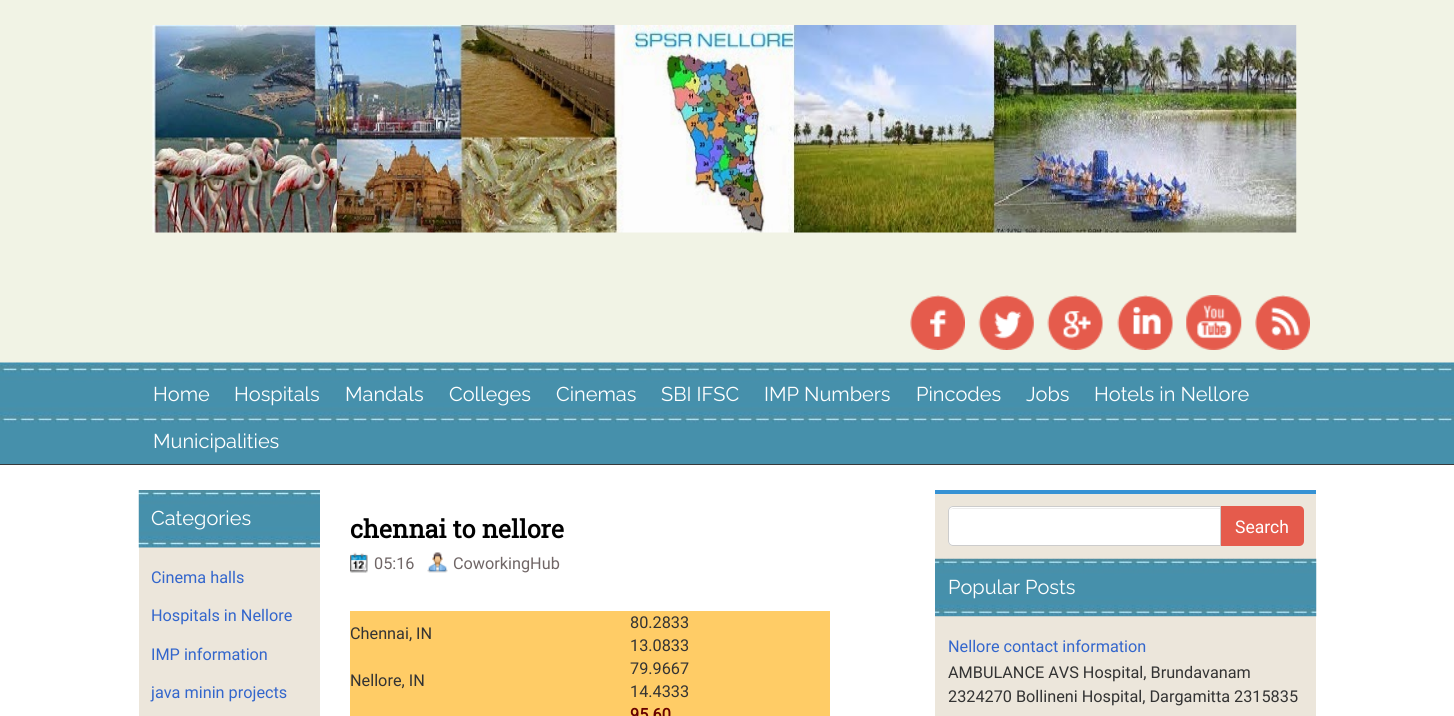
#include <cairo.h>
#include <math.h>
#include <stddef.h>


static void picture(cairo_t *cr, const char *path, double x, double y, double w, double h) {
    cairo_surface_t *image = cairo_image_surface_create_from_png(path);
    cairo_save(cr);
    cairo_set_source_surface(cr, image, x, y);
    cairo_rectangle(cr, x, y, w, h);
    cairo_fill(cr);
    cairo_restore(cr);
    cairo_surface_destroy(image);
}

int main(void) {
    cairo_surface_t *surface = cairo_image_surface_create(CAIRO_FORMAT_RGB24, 1454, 716);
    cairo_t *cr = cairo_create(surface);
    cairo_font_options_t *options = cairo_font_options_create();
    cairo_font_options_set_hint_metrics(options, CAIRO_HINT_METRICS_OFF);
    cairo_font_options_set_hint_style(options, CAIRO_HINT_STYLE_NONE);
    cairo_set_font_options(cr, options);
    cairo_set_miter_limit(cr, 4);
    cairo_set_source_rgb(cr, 1, 1, 1);
    cairo_paint(cr);
    cairo_set_source_rgb(cr, 0.945, 0.953, 0.898);
    cairo_rectangle(cr, 0, 0, 1454, 363);
    cairo_fill(cr);
    picture(cr, "img1.png", 152, 25, 1145, 208);
    picture(cr, "img2.png", 910, 295, 55, 55);
    picture(cr, "img3.png", 978, 295, 56, 55);
    picture(cr, "img4.png", 1047, 295, 56, 55);
    picture(cr, "img5.png", 1117, 295, 56, 55);
    picture(cr, "img6.png", 1186, 295, 56, 55);
    picture(cr, "img7.png", 1255, 295, 55, 55);
    cairo_set_source_rgb(cr, 0.275, 0.565, 0.671);
    cairo_rectangle(cr, 0, 423, 1454, 41);
    cairo_fill(cr);
    picture(cr, "img8.png", 0, 362, 1454, 61);
    cairo_set_source_rgb(cr, 0.216, 0.224, 0.231);
    cairo_rectangle(cr, 0, 464, 1454, 1);
    cairo_fill(cr);
    cairo_select_font_face(cr, "Raleway Thin", CAIRO_FONT_SLANT_NORMAL, CAIRO_FONT_WEIGHT_NORMAL);
    cairo_set_font_size(cr, 20);
    cairo_set_source_rgb(cr, 1, 1, 1);
    cairo_move_to(cr, 153, 401);
    cairo_show_text(cr, "Home");
    cairo_move_to(cr, 234, 401);
    cairo_show_text(cr, "Hospitals");
    cairo_move_to(cr, 345, 401);
    cairo_show_text(cr, "Mandals");
    cairo_move_to(cr, 449, 401);
    cairo_show_text(cr, "Colleges");
    cairo_move_to(cr, 556, 401);
    cairo_show_text(cr, "Cinemas");
    cairo_move_to(cr, 661, 401);
    cairo_show_text(cr, "SBI IFSC");
    cairo_move_to(cr, 764, 401);
    cairo_show_text(cr, "IMP Numbers");
    cairo_move_to(cr, 916, 401);
    cairo_show_text(cr, "Pincodes");
    cairo_move_to(cr, 1026, 401);
    cairo_show_text(cr, "Jobs");
    cairo_move_to(cr, 1094, 401);
    cairo_show_text(cr, "Hotels in Nellore");
    cairo_move_to(cr, 153, 448);
    cairo_show_text(cr, "Municipalities");
    cairo_set_source_rgb(cr, 0.925, 0.902, 0.859);
    cairo_rectangle(cr, 139, 547, 181, 169);
    cairo_fill(cr);
    picture(cr, "img9.png", 138, 490, 182, 58);
    cairo_set_source_rgb(cr, 1, 1, 1);
    cairo_move_to(cr, 151, 525);
    cairo_show_text(cr, "Categories");
    cairo_select_font_face(cr, "Roboto", CAIRO_FONT_SLANT_NORMAL, CAIRO_FONT_WEIGHT_NORMAL);
    cairo_set_font_size(cr, 16.25);
    cairo_set_source_rgb(cr, 0.2, 0.4, 0.8);
    cairo_move_to(cr, 151, 583);
    cairo_show_text(cr, "Cinema halls");
    cairo_move_to(cr, 151, 621);
    cairo_show_text(cr, "Hospitals in Nellore");
    cairo_move_to(cr, 151, 660);
    cairo_show_text(cr, "IMP information");
    cairo_move_to(cr, 151, 698);
    cairo_show_text(cr, "java minin projects");
    cairo_select_font_face(cr, "Roboto Slab", CAIRO_FONT_SLANT_NORMAL, CAIRO_FONT_WEIGHT_BOLD);
    cairo_set_font_size(cr, 25);
    cairo_set_source_rgb(cr, 0, 0, 0);
    cairo_move_to(cr, 350, 538);
    cairo_show_text(cr, "chennai to nellore");
    picture(cr, "img10.png", 350, 552, 18, 21);
    cairo_select_font_face(cr, "Roboto", CAIRO_FONT_SLANT_NORMAL, CAIRO_FONT_WEIGHT_NORMAL);
    cairo_set_font_size(cr, 16.25);
    cairo_set_source_rgb(cr, 0.439, 0.4, 0.4);
    cairo_move_to(cr, 374, 569);
    cairo_show_text(cr, "05:16");
    picture(cr, "img11.png", 427, 552, 21, 21);
    cairo_move_to(cr, 453, 569);
    cairo_show_text(cr, "CoworkingHub");
    cairo_set_source_rgb(cr, 1, 0.8, 0.4);
    cairo_rectangle(cr, 350, 611, 480, 105);
    cairo_fill(cr);
    cairo_set_source_rgb(cr, 0.2, 0.2, 0.2);
    cairo_move_to(cr, 350, 639);
    cairo_show_text(cr, "Chennai, IN");
    cairo_move_to(cr, 630, 628);
    cairo_show_text(cr, "80.2833");
    cairo_move_to(cr, 630, 651);
    cairo_show_text(cr, "13.0833");
    cairo_move_to(cr, 350, 686);
    cairo_show_text(cr, "Nellore, IN");
    cairo_move_to(cr, 630, 674);
    cairo_show_text(cr, "79.9667");
    cairo_move_to(cr, 630, 697);
    cairo_show_text(cr, "14.4333");
    cairo_select_font_face(cr, "Roboto", CAIRO_FONT_SLANT_NORMAL, CAIRO_FONT_WEIGHT_BOLD);
    cairo_set_source_rgb(cr, 0.4, 0, 0);
    cairo_move_to(cr, 630, 720);
    cairo_show_text(cr, "95.60");
    cairo_set_source_rgb(cr, 0.925, 0.902, 0.859);
    cairo_rectangle(cr, 935, 494, 381, 222);
    cairo_fill(cr);
    cairo_set_source_rgb(cr, 0.212, 0.573, 0.831);
    cairo_rectangle(cr, 935, 490, 381, 4);
    cairo_fill(cr);
    cairo_set_source_rgb(cr, 0.898, 0.357, 0.298);
    cairo_new_path(cr);
    cairo_move_to(cr, 1220, 506);
    cairo_line_to(cr, 1299, 506);
    cairo_curve_to(cr, 1302, 506, 1304, 508, 1304, 511);
    cairo_line_to(cr, 1304, 541);
    cairo_curve_to(cr, 1304, 544, 1302, 546, 1299, 546);
    cairo_line_to(cr, 1220, 546);
    cairo_close_path(cr);
    cairo_fill(cr);
    cairo_set_source_rgb(cr, 1, 1, 1);
    cairo_new_path(cr);
    cairo_move_to(cr, 953, 506);
    cairo_line_to(cr, 1221, 506);
    cairo_line_to(cr, 1221, 546);
    cairo_line_to(cr, 953, 546);
    cairo_curve_to(cr, 950, 546, 948, 544, 948, 541);
    cairo_line_to(cr, 948, 511);
    cairo_curve_to(cr, 948, 508, 950, 506, 953, 506);
    cairo_close_path(cr);
    cairo_fill(cr);
    cairo_set_source_rgb(cr, 0.925, 0.925, 0.925);
    cairo_new_path(cr);
    cairo_move_to(cr, 952, 509);
    cairo_line_to(cr, 1220, 509);
    cairo_line_to(cr, 1220, 508);
    cairo_line_to(cr, 953, 508);
    cairo_line_to(cr, 951, 509);
    cairo_line_to(cr, 950, 510);
    cairo_close_path(cr);
    cairo_fill(cr);
    cairo_new_path(cr);
    cairo_move_to(cr, 953, 506.5);
    cairo_line_to(cr, 1220.5, 506.5);
    cairo_line_to(cr, 1220.5, 545.5);
    cairo_line_to(cr, 953, 545.5);
    cairo_curve_to(cr, 950.5, 545.5, 948.5, 543.5, 948.5, 541);
    cairo_line_to(cr, 948.5, 511);
    cairo_curve_to(cr, 948.5, 508.5, 950.5, 506.5, 953, 506.5);
    cairo_close_path(cr);
    cairo_set_source_rgb(cr, 0.8, 0.8, 0.8);
    cairo_set_line_width(cr, 1);
    cairo_stroke(cr);
    cairo_select_font_face(cr, "Roboto", CAIRO_FONT_SLANT_NORMAL, CAIRO_FONT_WEIGHT_NORMAL);
    cairo_set_font_size(cr, 17.5);
    cairo_set_source_rgb(cr, 1, 1, 1);
    cairo_move_to(cr, 1235, 533);
    cairo_show_text(cr, "Search");
    picture(cr, "img12.png", 935, 558, 382, 59);
    cairo_select_font_face(cr, "Raleway Thin", CAIRO_FONT_SLANT_NORMAL, CAIRO_FONT_WEIGHT_NORMAL);
    cairo_set_font_size(cr, 20);
    cairo_move_to(cr, 948, 594);
    cairo_show_text(cr, "Popular Posts");
    cairo_select_font_face(cr, "Roboto", CAIRO_FONT_SLANT_NORMAL, CAIRO_FONT_WEIGHT_NORMAL);
    cairo_set_font_size(cr, 16.25);
    cairo_set_source_rgb(cr, 0.2, 0.4, 0.8);
    cairo_move_to(cr, 948, 652);
    cairo_show_text(cr, "Nellore contact information");
    cairo_set_source_rgb(cr, 0.2, 0.2, 0.2);
    cairo_move_to(cr, 948, 678);
    cairo_show_text(cr, "AMBULANCE AVS Hospital, Brundavanam");
    cairo_move_to(cr, 948, 702);
    cairo_show_text(cr, "2324270 Bollineni Hospital, Dargamitta 2315835");
    cairo_surface_write_to_png(surface, "page.png");
    cairo_font_options_destroy(options);
    cairo_destroy(cr);
    cairo_surface_destroy(surface);
    return 0;
}
